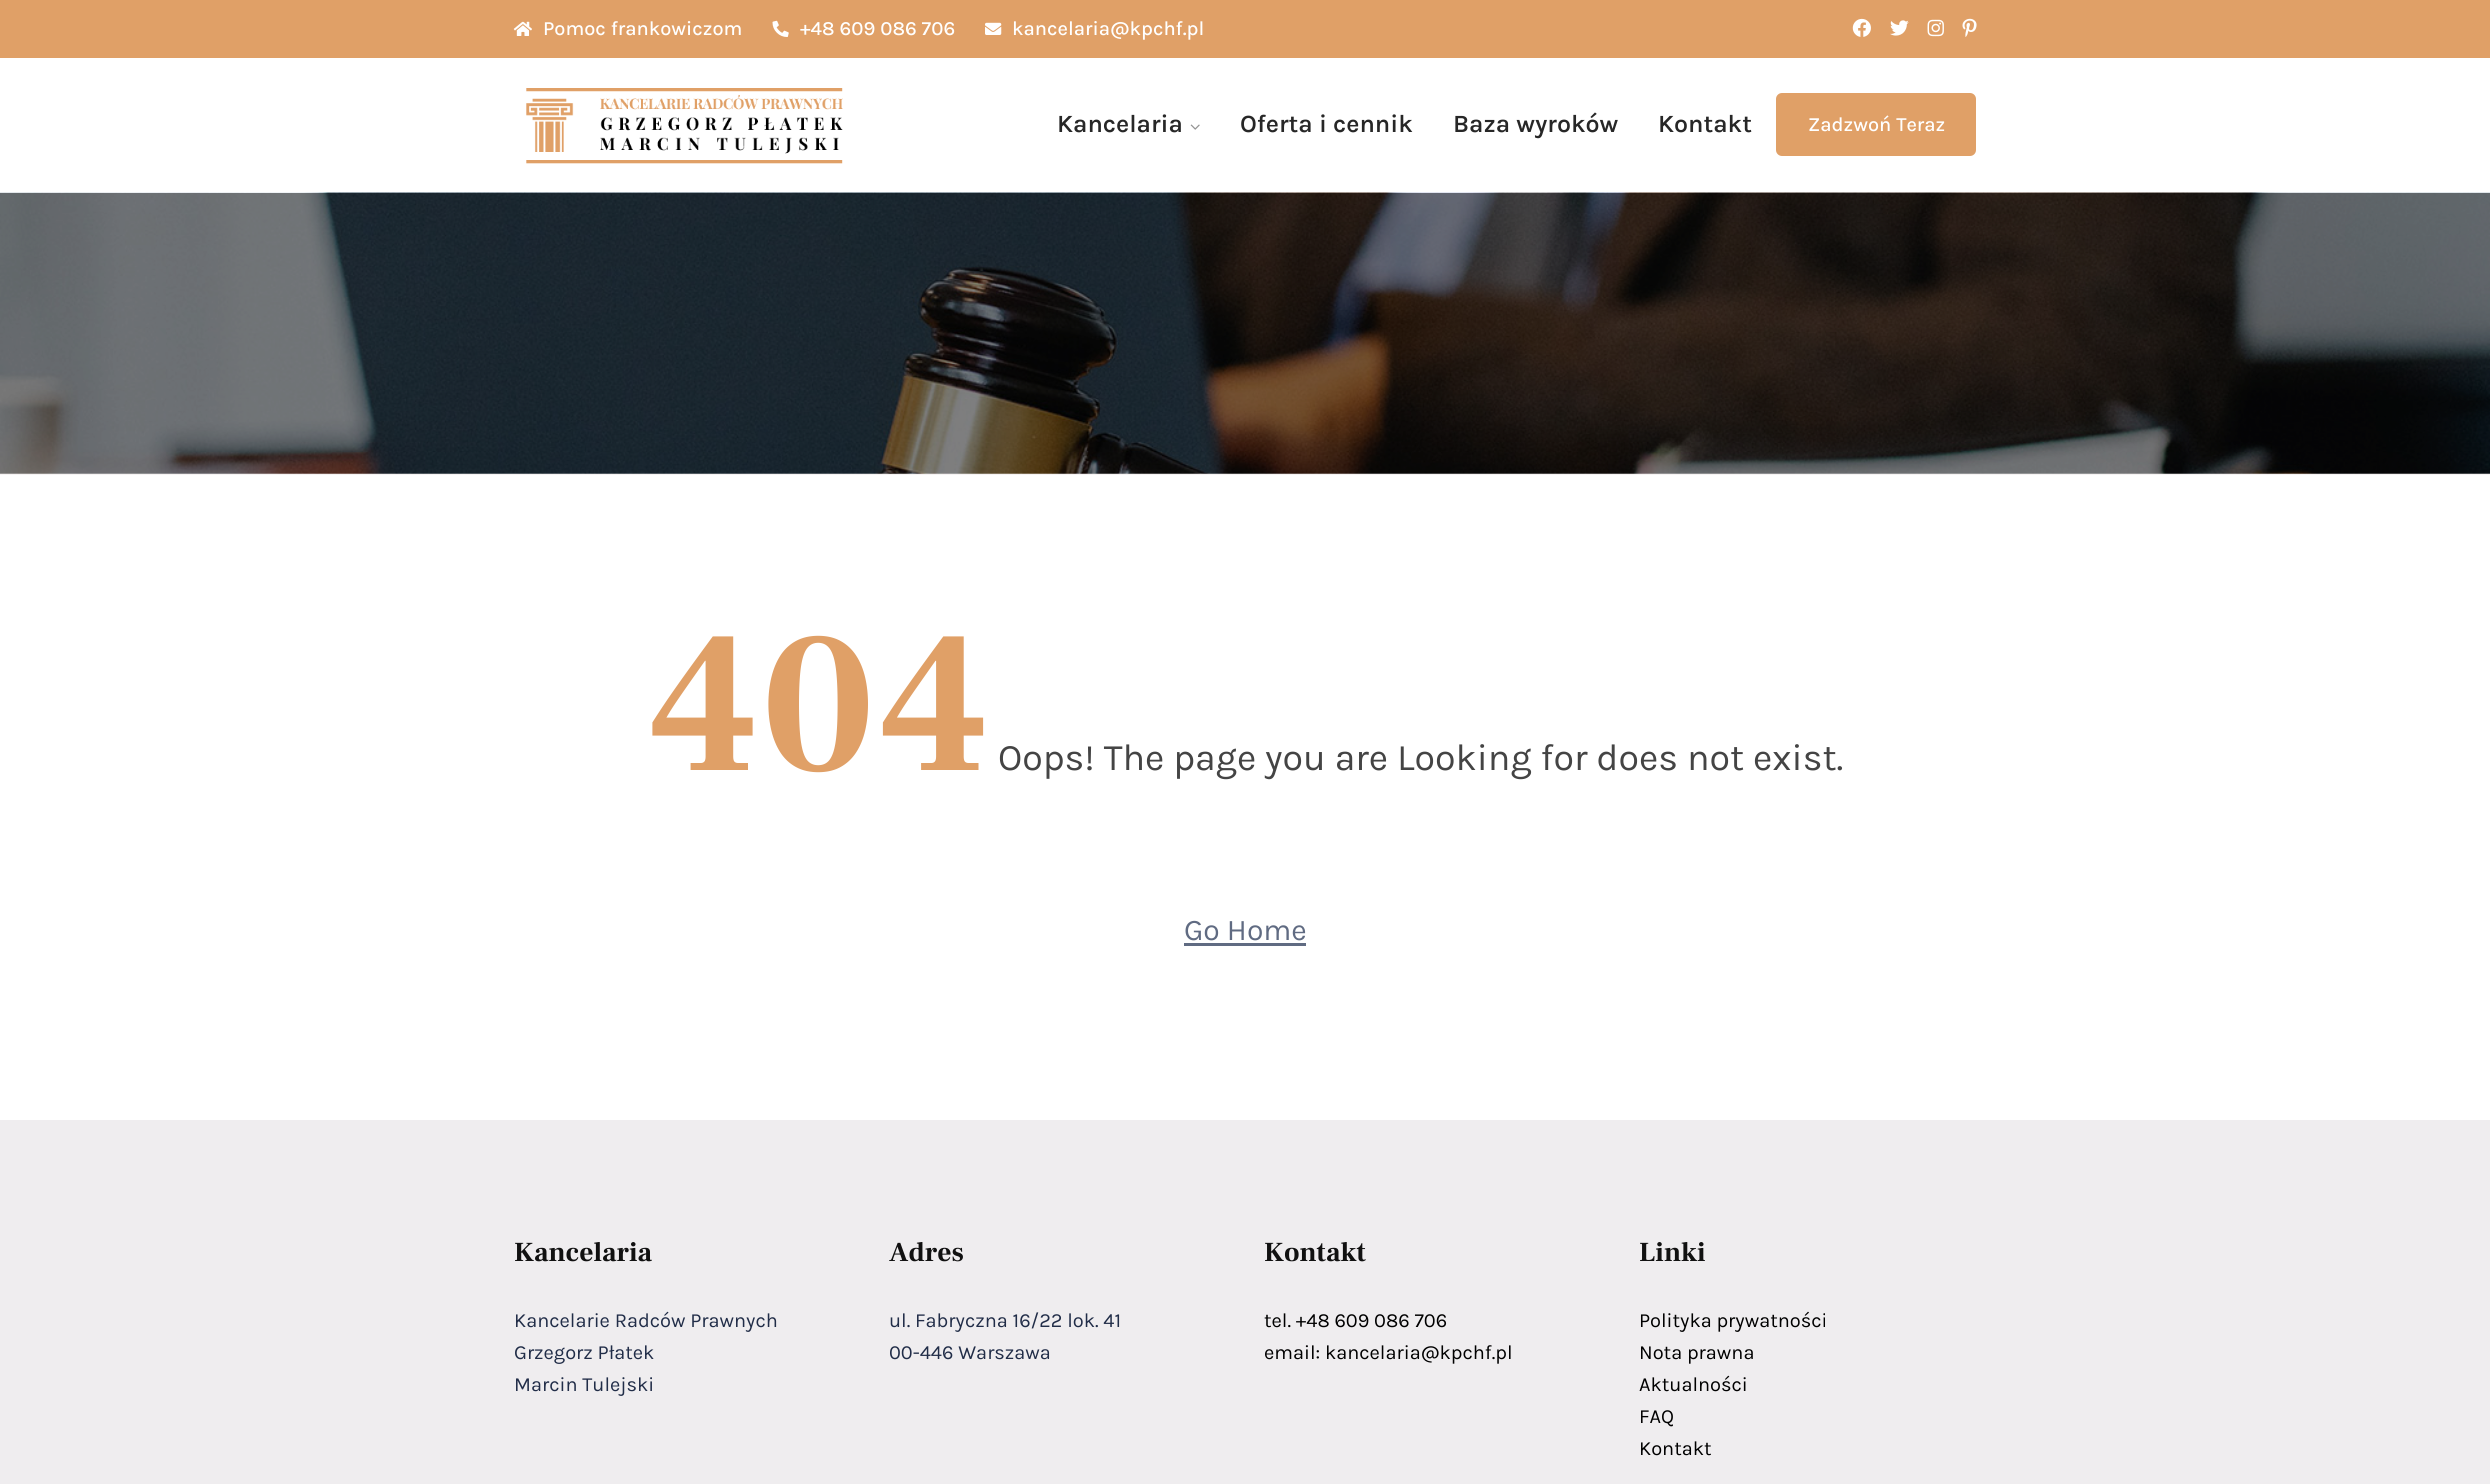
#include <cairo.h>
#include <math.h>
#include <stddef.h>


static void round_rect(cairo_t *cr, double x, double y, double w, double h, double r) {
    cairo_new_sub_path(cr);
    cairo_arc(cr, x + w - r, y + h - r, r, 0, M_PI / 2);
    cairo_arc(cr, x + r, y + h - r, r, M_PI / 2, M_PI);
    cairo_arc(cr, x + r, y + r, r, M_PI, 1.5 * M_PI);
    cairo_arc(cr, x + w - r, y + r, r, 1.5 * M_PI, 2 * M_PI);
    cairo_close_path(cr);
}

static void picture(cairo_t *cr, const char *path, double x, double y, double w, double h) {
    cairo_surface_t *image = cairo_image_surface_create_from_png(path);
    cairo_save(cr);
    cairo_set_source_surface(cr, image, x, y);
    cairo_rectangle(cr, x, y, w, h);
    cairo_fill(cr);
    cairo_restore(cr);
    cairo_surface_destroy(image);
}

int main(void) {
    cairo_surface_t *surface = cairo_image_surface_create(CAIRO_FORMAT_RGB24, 2490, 1484);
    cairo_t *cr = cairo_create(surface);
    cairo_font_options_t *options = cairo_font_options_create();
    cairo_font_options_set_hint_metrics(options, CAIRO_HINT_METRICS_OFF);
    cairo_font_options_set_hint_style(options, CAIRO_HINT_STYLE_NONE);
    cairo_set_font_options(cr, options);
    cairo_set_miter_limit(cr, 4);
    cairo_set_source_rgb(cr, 1, 1, 1);
    cairo_paint(cr);
    cairo_set_source_rgb(cr, 0.878, 0.627, 0.404);
    cairo_rectangle(cr, 0, 0, 2490, 58);
    cairo_fill(cr);
    picture(cr, "img1.png", 513, 21, 19, 15);
    cairo_select_font_face(cr, "Karla Medium", CAIRO_FONT_SLANT_NORMAL, CAIRO_FONT_WEIGHT_NORMAL);
    cairo_set_font_size(cr, 20);
    cairo_set_source_rgb(cr, 1, 1, 1);
    cairo_move_to(cr, 543, 35);
    cairo_show_text(cr, "Pomoc frankowiczom");
    picture(cr, "img2.png", 772, 20, 17, 17);
    cairo_move_to(cr, 800, 35);
    cairo_show_text(cr, "+48 609 086 706");
    picture(cr, "img3.png", 985, 22, 17, 13);
    cairo_move_to(cr, 1012, 35);
    cairo_show_text(cr, "kancelaria@kpchf.pl");
    picture(cr, "img4.png", 1852, 18, 19, 19);
    picture(cr, "img5.png", 1890, 20, 19, 16);
    picture(cr, "img6.png", 1927, 19, 17, 18);
    picture(cr, "img7.png", 1962, 18, 15, 19);
    picture(cr, "img8.png", 526, 88, 317, 76);
    cairo_select_font_face(cr, "Karla SemiBold", CAIRO_FONT_SLANT_NORMAL, CAIRO_FONT_WEIGHT_NORMAL);
    cairo_set_font_size(cr, 25);
    cairo_set_source_rgb(cr, 0.153, 0.153, 0.153);
    cairo_move_to(cr, 1057, 132);
    cairo_show_text(cr, "Kancelaria");
    picture(cr, "img9.png", 1190, 124, 10, 6);
    cairo_move_to(cr, 1240, 132);
    cairo_show_text(cr, "Oferta i cennik");
    cairo_move_to(cr, 1453, 132);
    cairo_show_text(cr, "Baza wyroków");
    cairo_move_to(cr, 1658, 132);
    cairo_show_text(cr, "Kontakt");
    cairo_set_source_rgb(cr, 0.878, 0.627, 0.404);
    round_rect(cr, 1776, 93, 200, 63, 6);
    cairo_fill(cr);
    cairo_select_font_face(cr, "Karla Medium", CAIRO_FONT_SLANT_NORMAL, CAIRO_FONT_WEIGHT_NORMAL);
    cairo_set_font_size(cr, 20);
    cairo_set_source_rgb(cr, 1, 1, 1);
    cairo_move_to(cr, 1808, 131);
    cairo_show_text(cr, "Zadzwoń Teraz");
    picture(cr, "img10.png", 0, 192, 2490, 282);
    cairo_set_source_rgb(cr, 0.961, 0.953, 0.953);
    cairo_rectangle(cr, 0, 474, 2490, 1);
    cairo_fill(cr);
    cairo_select_font_face(cr, "Frank Ruhl Libre", CAIRO_FONT_SLANT_NORMAL, CAIRO_FONT_WEIGHT_BOLD);
    cairo_set_font_size(cr, 200);
    cairo_set_source_rgb(cr, 0.878, 0.627, 0.404);
    cairo_move_to(cr, 647, 770);
    cairo_show_text(cr, "404");
    cairo_select_font_face(cr, "Karla", CAIRO_FONT_SLANT_NORMAL, CAIRO_FONT_WEIGHT_NORMAL);
    cairo_set_font_size(cr, 37.5);
    cairo_set_source_rgb(cr, 0.267, 0.267, 0.267);
    cairo_move_to(cr, 998, 770);
    cairo_show_text(cr, "Oops! The page you are Looking for does not exist.");
    cairo_set_font_size(cr, 30);
    cairo_set_source_rgb(cr, 0.376, 0.42, 0.51);
    cairo_move_to(cr, 1184, 940);
    cairo_show_text(cr, "Go Home");
    cairo_rectangle(cr, 1184, 943, 122, 3);
    cairo_fill(cr);
    cairo_set_source_rgb(cr, 0.937, 0.929, 0.937);
    cairo_rectangle(cr, 0, 1120, 2490, 364);
    cairo_fill(cr);
    cairo_select_font_face(cr, "Frank Ruhl Libre", CAIRO_FONT_SLANT_NORMAL, CAIRO_FONT_WEIGHT_BOLD);
    cairo_set_font_size(cr, 27.5);
    cairo_set_source_rgb(cr, 0.067, 0.067, 0.067);
    cairo_move_to(cr, 514, 1261);
    cairo_show_text(cr, "Kancelaria");
    cairo_select_font_face(cr, "Karla", CAIRO_FONT_SLANT_NORMAL, CAIRO_FONT_WEIGHT_NORMAL);
    cairo_set_font_size(cr, 20);
    cairo_set_source_rgb(cr, 0.129, 0.176, 0.282);
    cairo_move_to(cr, 514, 1327);
    cairo_show_text(cr, "Kancelarie Radców Prawnych");
    cairo_move_to(cr, 514, 1359);
    cairo_show_text(cr, "Grzegorz Płatek");
    cairo_move_to(cr, 514, 1391);
    cairo_show_text(cr, "Marcin Tulejski");
    cairo_select_font_face(cr, "Frank Ruhl Libre", CAIRO_FONT_SLANT_NORMAL, CAIRO_FONT_WEIGHT_BOLD);
    cairo_set_font_size(cr, 27.5);
    cairo_set_source_rgb(cr, 0.067, 0.067, 0.067);
    cairo_move_to(cr, 889, 1261);
    cairo_show_text(cr, "Adres");
    cairo_select_font_face(cr, "Karla", CAIRO_FONT_SLANT_NORMAL, CAIRO_FONT_WEIGHT_NORMAL);
    cairo_set_font_size(cr, 20);
    cairo_set_source_rgb(cr, 0.129, 0.176, 0.282);
    cairo_move_to(cr, 889, 1327);
    cairo_show_text(cr, "ul. Fabryczna 16/22 lok. 41");
    cairo_move_to(cr, 889, 1359);
    cairo_show_text(cr, "00-446 Warszawa");
    cairo_select_font_face(cr, "Frank Ruhl Libre", CAIRO_FONT_SLANT_NORMAL, CAIRO_FONT_WEIGHT_BOLD);
    cairo_set_font_size(cr, 27.5);
    cairo_set_source_rgb(cr, 0.067, 0.067, 0.067);
    cairo_move_to(cr, 1264, 1261);
    cairo_show_text(cr, "Kontakt");
    cairo_select_font_face(cr, "Karla", CAIRO_FONT_SLANT_NORMAL, CAIRO_FONT_WEIGHT_NORMAL);
    cairo_set_font_size(cr, 20);
    cairo_set_source_rgb(cr, 0, 0, 0);
    cairo_move_to(cr, 1264, 1327);
    cairo_show_text(cr, "tel. +48 609 086 706");
    cairo_move_to(cr, 1264, 1359);
    cairo_show_text(cr, "email: kancelaria@kpchf.pl");
    cairo_select_font_face(cr, "Frank Ruhl Libre", CAIRO_FONT_SLANT_NORMAL, CAIRO_FONT_WEIGHT_BOLD);
    cairo_set_font_size(cr, 27.5);
    cairo_set_source_rgb(cr, 0.067, 0.067, 0.067);
    cairo_move_to(cr, 1639, 1261);
    cairo_show_text(cr, "Linki");
    cairo_select_font_face(cr, "Karla", CAIRO_FONT_SLANT_NORMAL, CAIRO_FONT_WEIGHT_NORMAL);
    cairo_set_font_size(cr, 20);
    cairo_set_source_rgb(cr, 0, 0, 0);
    cairo_move_to(cr, 1639, 1327);
    cairo_show_text(cr, "Polityka prywatności");
    cairo_move_to(cr, 1639, 1359);
    cairo_show_text(cr, "Nota prawna");
    cairo_move_to(cr, 1639, 1391);
    cairo_show_text(cr, "Aktualności");
    cairo_move_to(cr, 1639, 1423);
    cairo_show_text(cr, "FAQ");
    cairo_move_to(cr, 1639, 1455);
    cairo_show_text(cr, "Kontakt");
    cairo_surface_write_to_png(surface, "page.png");
    cairo_font_options_destroy(options);
    cairo_destroy(cr);
    cairo_surface_destroy(surface);
    return 0;
}
